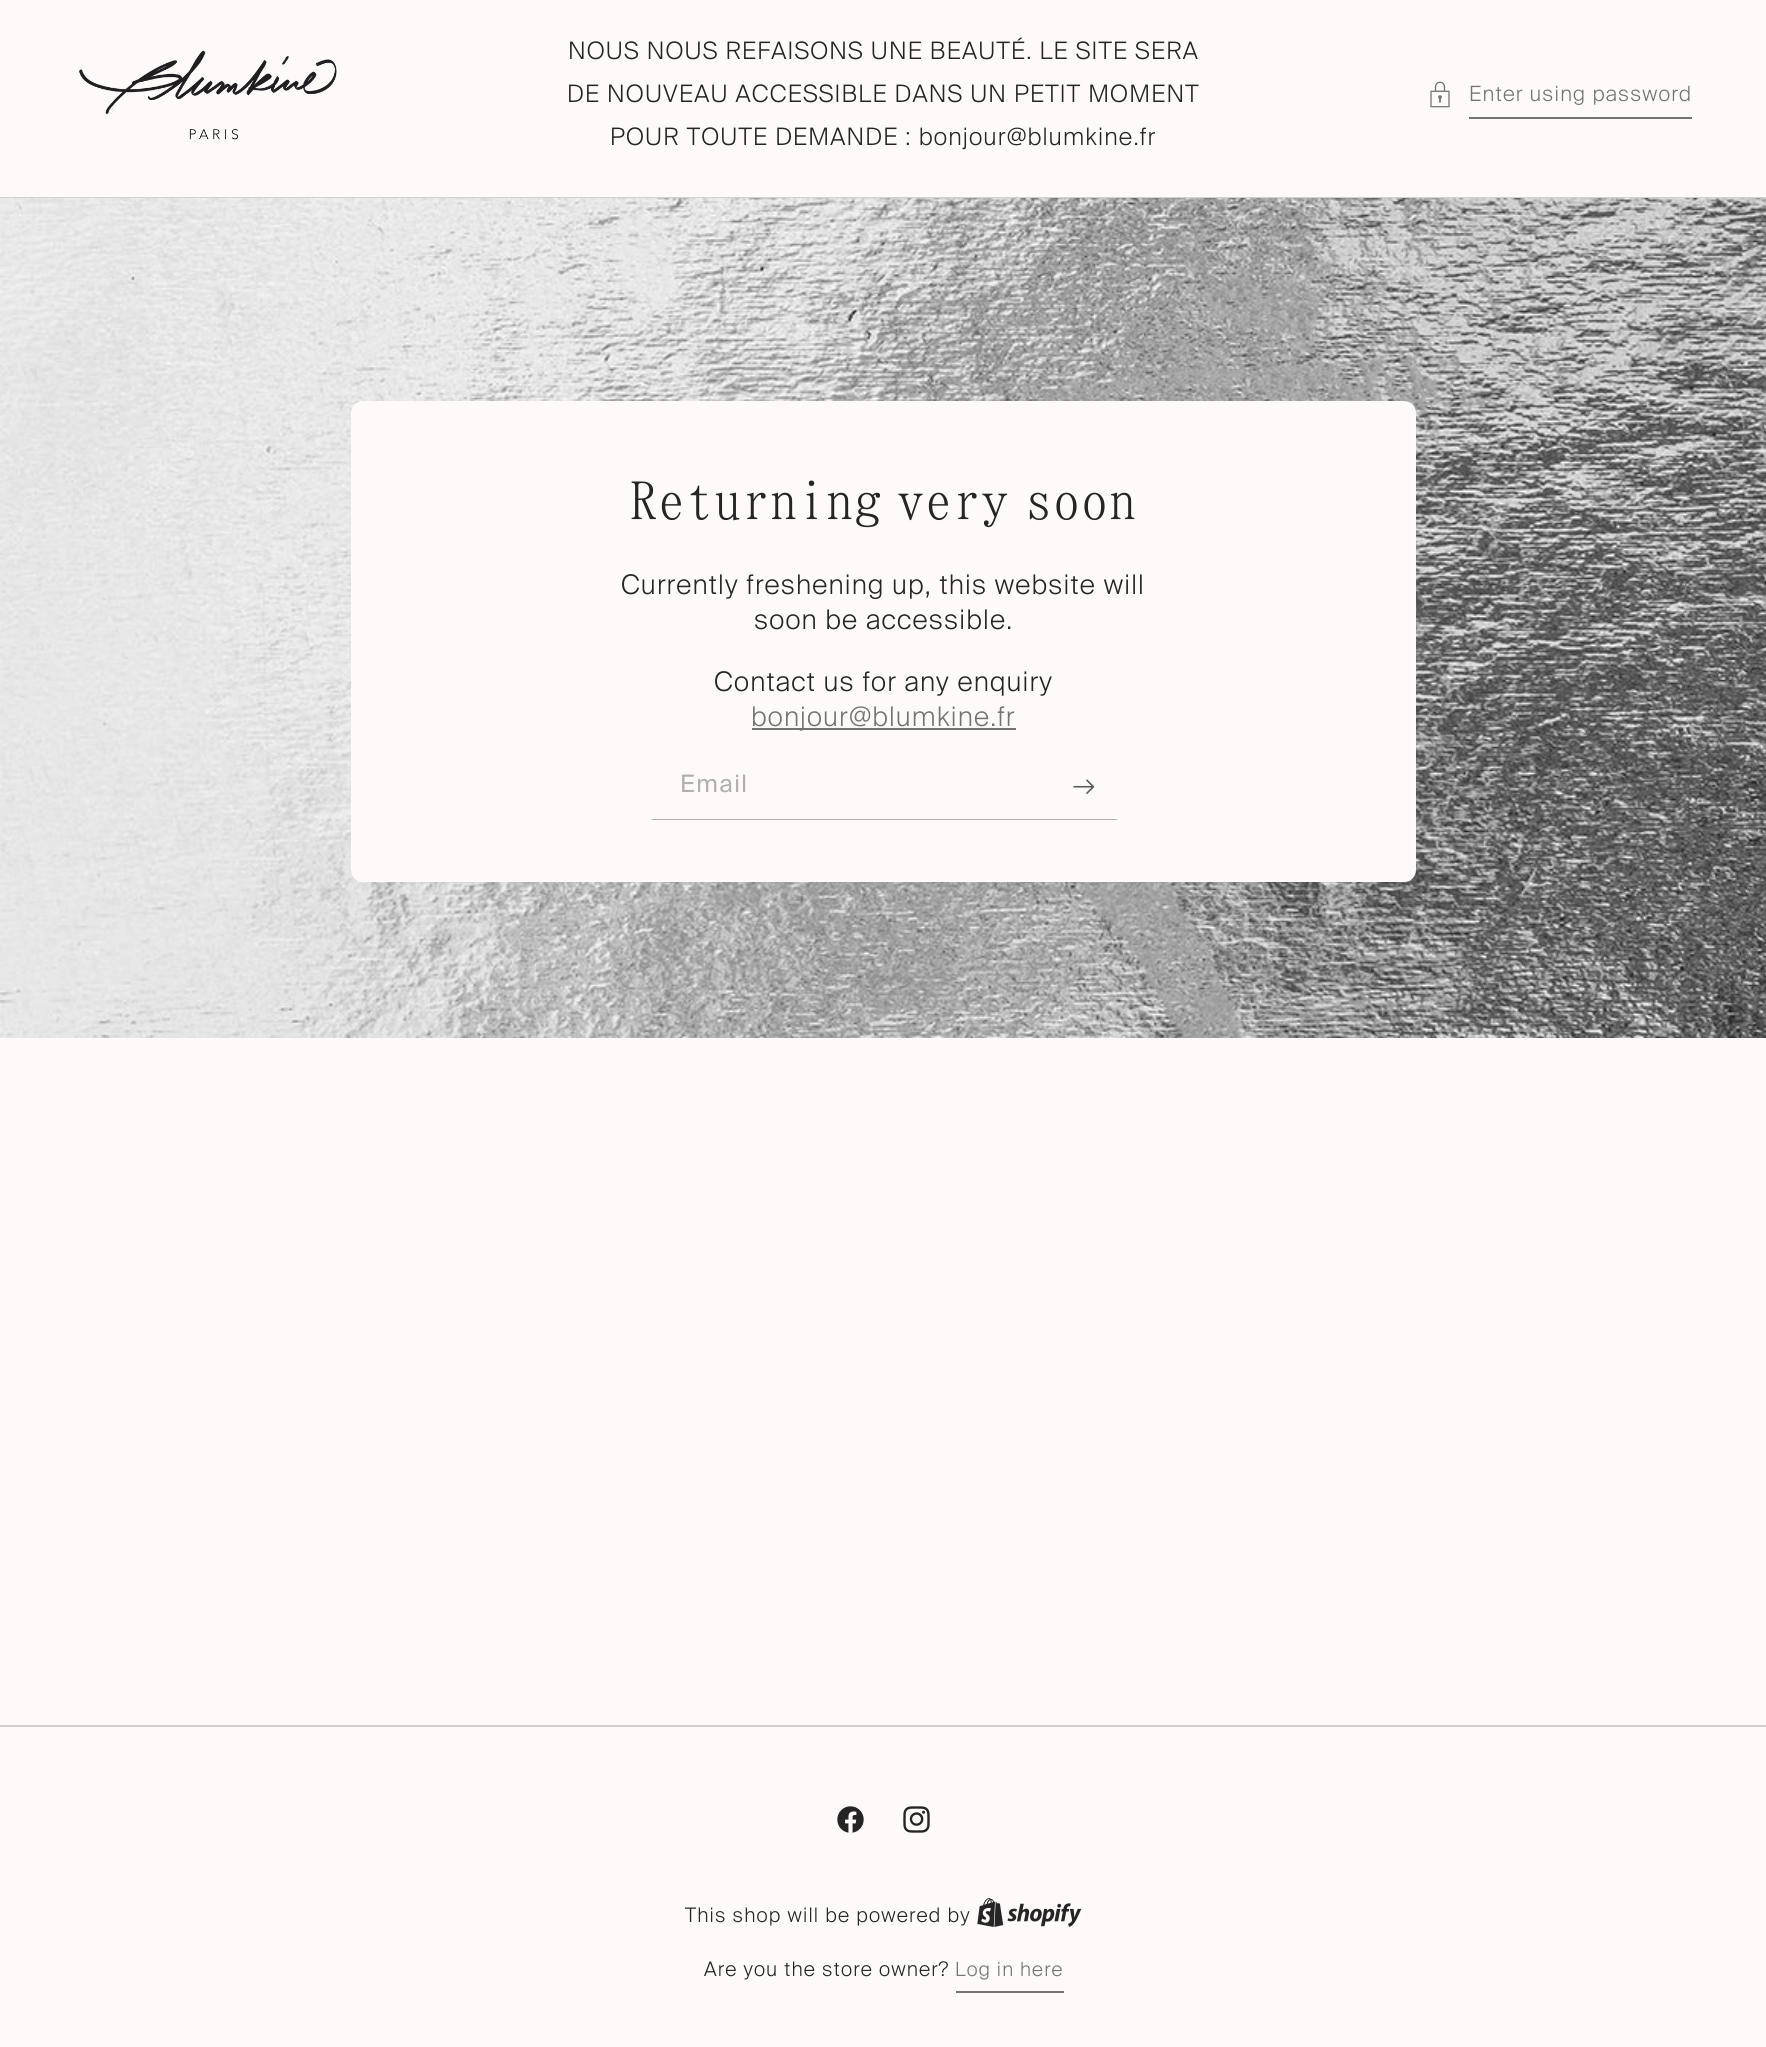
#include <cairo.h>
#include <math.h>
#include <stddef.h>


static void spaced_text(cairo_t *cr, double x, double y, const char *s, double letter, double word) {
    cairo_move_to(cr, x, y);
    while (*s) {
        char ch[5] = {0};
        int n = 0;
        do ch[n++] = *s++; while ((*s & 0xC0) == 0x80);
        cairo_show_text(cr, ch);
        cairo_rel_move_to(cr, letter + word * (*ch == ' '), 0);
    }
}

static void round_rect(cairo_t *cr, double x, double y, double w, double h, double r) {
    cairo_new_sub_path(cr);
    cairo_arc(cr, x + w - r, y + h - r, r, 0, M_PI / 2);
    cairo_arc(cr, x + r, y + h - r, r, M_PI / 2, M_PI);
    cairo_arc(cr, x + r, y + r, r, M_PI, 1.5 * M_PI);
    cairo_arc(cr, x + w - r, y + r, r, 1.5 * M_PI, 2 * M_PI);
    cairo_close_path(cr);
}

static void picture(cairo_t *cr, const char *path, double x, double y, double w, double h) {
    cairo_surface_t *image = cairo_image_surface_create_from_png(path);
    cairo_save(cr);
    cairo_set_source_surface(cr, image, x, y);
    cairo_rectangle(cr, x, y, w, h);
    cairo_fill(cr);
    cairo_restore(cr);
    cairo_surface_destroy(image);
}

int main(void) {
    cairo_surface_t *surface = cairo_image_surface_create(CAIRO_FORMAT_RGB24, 1766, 2047);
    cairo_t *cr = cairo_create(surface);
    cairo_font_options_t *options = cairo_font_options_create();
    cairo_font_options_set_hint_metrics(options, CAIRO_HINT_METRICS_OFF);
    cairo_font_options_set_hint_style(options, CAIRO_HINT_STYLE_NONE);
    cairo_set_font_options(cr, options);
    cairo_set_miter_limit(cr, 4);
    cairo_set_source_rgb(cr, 0.992, 0.98, 0.976);
    cairo_paint(cr);
    picture(cr, "img1.png", 79, 50, 258, 90);
    cairo_select_font_face(cr, "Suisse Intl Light", CAIRO_FONT_SLANT_NORMAL, CAIRO_FONT_WEIGHT_NORMAL);
    cairo_set_font_size(cr, 24);
    cairo_set_source_rgb(cr, 0.145, 0.145, 0.145);
    spaced_text(cr, 568, 59, "NOUS NOUS REFAISONS UNE BEAUTÉ. LE SITE SERA", 1.2, 0);
    spaced_text(cr, 567, 102, "DE NOUVEAU ACCESSIBLE DANS UN PETIT MOMENT", 1.2, 0);
    spaced_text(cr, 610, 145, "POUR TOUTE DEMANDE : bonjour@blumkine.fr", 1.2, 0);
    picture(cr, "img2.png", 1430, 81, 20, 27);
    cairo_set_font_size(cr, 21);
    cairo_set_source_rgb(cr, 0.455, 0.451, 0.451);
    spaced_text(cr, 1469, 101, "Enter using password", 1.2, 0);
    cairo_rectangle(cr, 1469, 117, 223, 2);
    cairo_fill(cr);
    cairo_set_source_rgb(cr, 0.824, 0.812, 0.812);
    cairo_rectangle(cr, 0, 197, 1766, 1);
    cairo_fill(cr);
    picture(cr, "img3.png", 0, 198, 1766, 840);
    cairo_set_source_rgb(cr, 0.992, 0.98, 0.976);
    round_rect(cr, 351, 401, 1065, 481, 12);
    cairo_fill(cr);
    cairo_select_font_face(cr, "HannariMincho", CAIRO_FONT_SLANT_NORMAL, CAIRO_FONT_WEIGHT_NORMAL);
    cairo_set_font_size(cr, 60);
    cairo_set_source_rgb(cr, 0.145, 0.145, 0.145);
    spaced_text(cr, 630, 522, "Returning", 1, 0);
    spaced_text(cr, 897, 522, "very", 1, 0);
    spaced_text(cr, 1025, 522, "soon", 1, 0);
    cairo_select_font_face(cr, "Suisse Intl Light", CAIRO_FONT_SLANT_NORMAL, CAIRO_FONT_WEIGHT_NORMAL);
    cairo_set_font_size(cr, 27);
    spaced_text(cr, 621, 594, "Currently freshening up, this website will", 1.2, 0);
    spaced_text(cr, 754, 629, "soon be accessible.", 1.2, 0);
    spaced_text(cr, 714, 691, "Contact us for any enquiry", 1.2, 0);
    cairo_set_source_rgb(cr, 0.455, 0.451, 0.451);
    cairo_rectangle(cr, 752, 728, 264, 2);
    cairo_fill(cr);
    spaced_text(cr, 751, 726, "bonjour@blumkine.fr", 1.2, 0);
    cairo_select_font_face(cr, "Suisse Intl", CAIRO_FONT_SLANT_NORMAL, CAIRO_FONT_WEIGHT_NORMAL);
    cairo_set_font_size(cr, 24);
    cairo_set_source_rgb(cr, 0.694, 0.686, 0.686);
    spaced_text(cr, 680, 792, "Email", 1.5, 0);
    picture(cr, "img4.png", 1073, 779, 22, 15);
    cairo_new_path(cr);
    cairo_move_to(cr, 1118, 820);
    cairo_line_to(cr, 651, 820);
    cairo_line_to(cr, 652, 819);
    cairo_line_to(cr, 1116, 819);
    cairo_close_path(cr);
    cairo_fill(cr);
    cairo_set_source_rgb(cr, 0.824, 0.812, 0.812);
    cairo_rectangle(cr, 0, 1725, 1766, 2);
    cairo_fill(cr);
    picture(cr, "img5.png", 837, 1806, 27, 27);
    picture(cr, "img6.png", 903, 1806, 27, 27);
    cairo_select_font_face(cr, "Suisse Intl Light", CAIRO_FONT_SLANT_NORMAL, CAIRO_FONT_WEIGHT_NORMAL);
    cairo_set_font_size(cr, 20);
    cairo_set_source_rgb(cr, 0.145, 0.145, 0.145);
    spaced_text(cr, 685, 1922, "This shop will be powered by", 1.2, 0);
    picture(cr, "img7.png", 977, 1898, 105, 29);
    spaced_text(cr, 704, 1976, "Are you the store owner?", 1.2, 0);
    cairo_set_font_size(cr, 19.5);
    cairo_set_source_rgb(cr, 0.455, 0.451, 0.451);
    spaced_text(cr, 955, 1976, "Log in here", 1.2, 0);
    cairo_rectangle(cr, 956, 1991, 108, 2);
    cairo_fill(cr);
    cairo_surface_write_to_png(surface, "page.png");
    cairo_font_options_destroy(options);
    cairo_destroy(cr);
    cairo_surface_destroy(surface);
    return 0;
}
